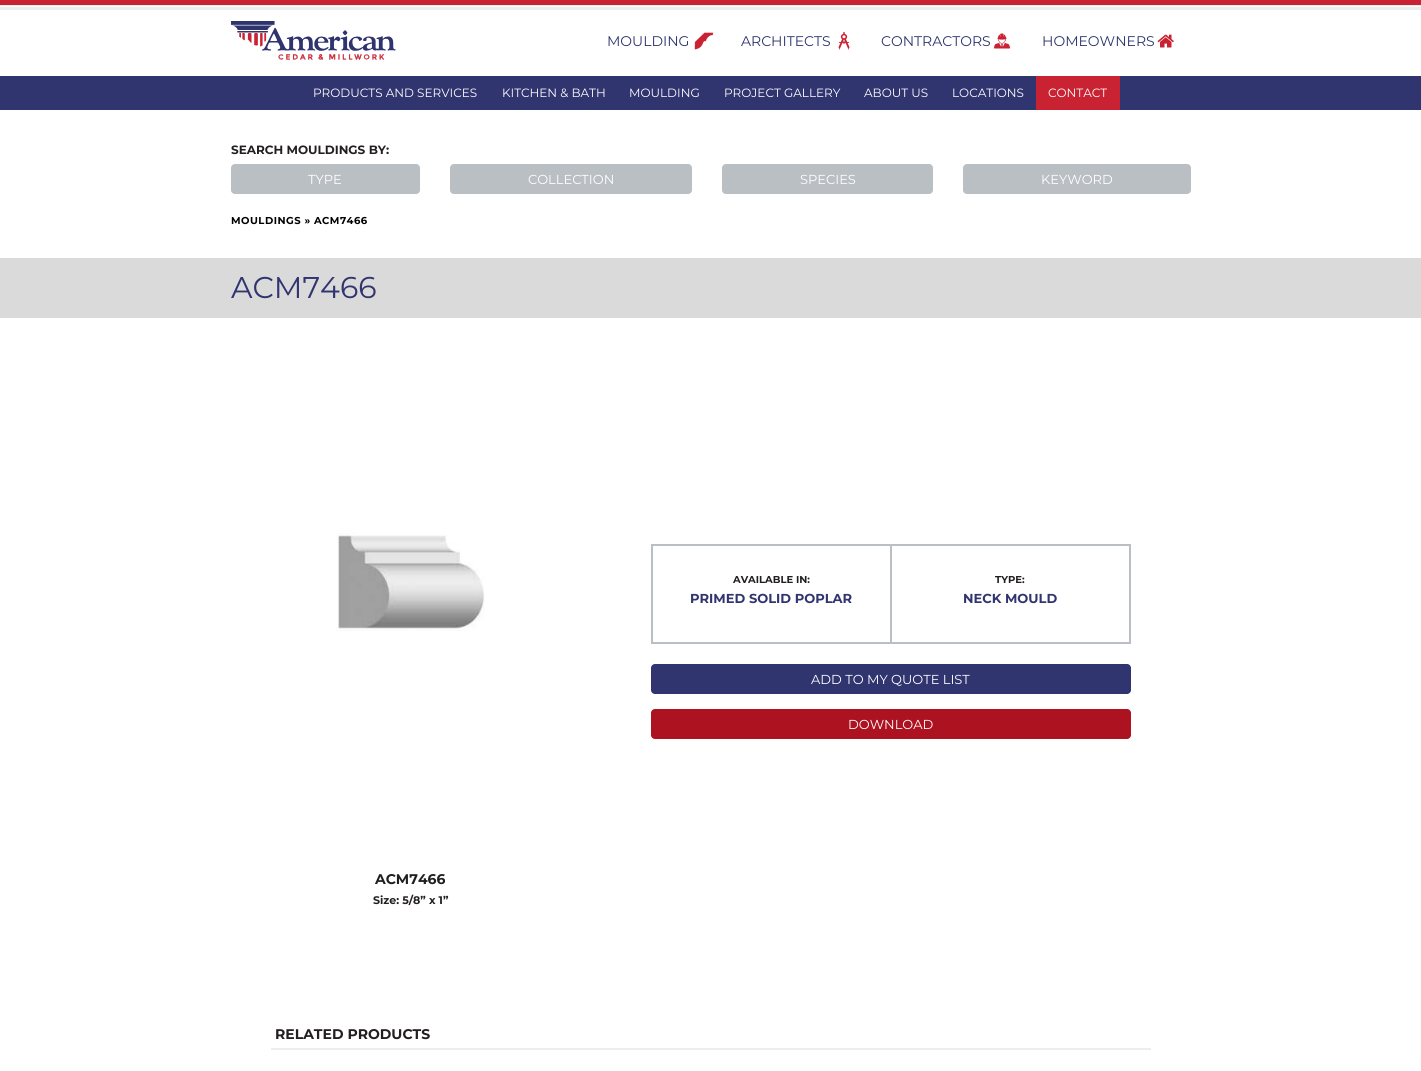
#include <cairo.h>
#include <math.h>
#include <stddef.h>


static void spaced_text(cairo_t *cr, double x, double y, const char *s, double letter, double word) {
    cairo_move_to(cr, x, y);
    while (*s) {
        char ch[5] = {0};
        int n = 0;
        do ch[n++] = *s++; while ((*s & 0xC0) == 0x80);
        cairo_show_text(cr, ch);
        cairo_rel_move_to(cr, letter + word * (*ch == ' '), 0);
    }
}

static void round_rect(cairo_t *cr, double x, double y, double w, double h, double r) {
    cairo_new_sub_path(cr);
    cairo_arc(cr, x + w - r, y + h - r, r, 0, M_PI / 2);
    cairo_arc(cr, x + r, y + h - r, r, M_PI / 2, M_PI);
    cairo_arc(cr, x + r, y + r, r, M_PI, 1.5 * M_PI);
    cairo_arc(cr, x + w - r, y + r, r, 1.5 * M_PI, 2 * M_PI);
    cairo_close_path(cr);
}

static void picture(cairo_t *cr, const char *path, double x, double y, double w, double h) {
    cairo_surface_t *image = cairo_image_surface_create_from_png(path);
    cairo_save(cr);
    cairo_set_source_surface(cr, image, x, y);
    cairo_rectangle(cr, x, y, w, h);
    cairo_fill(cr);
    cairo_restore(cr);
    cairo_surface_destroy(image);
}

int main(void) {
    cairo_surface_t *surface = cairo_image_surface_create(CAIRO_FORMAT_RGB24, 1421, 1071);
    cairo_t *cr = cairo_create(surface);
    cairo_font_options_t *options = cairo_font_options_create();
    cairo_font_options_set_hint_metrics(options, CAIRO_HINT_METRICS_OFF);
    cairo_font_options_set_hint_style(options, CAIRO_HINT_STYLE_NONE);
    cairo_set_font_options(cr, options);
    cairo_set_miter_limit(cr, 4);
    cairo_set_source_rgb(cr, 1, 1, 1);
    cairo_paint(cr);
    cairo_set_source_rgb(cr, 0.788, 0.133, 0.2);
    cairo_rectangle(cr, 0, 0, 1421, 5);
    cairo_fill(cr);
    cairo_set_source_rgb(cr, 0.918, 0.937, 0.941);
    cairo_rectangle(cr, 0, 5, 1421, 5);
    cairo_fill(cr);
    cairo_set_source_rgb(cr, 1, 1, 1);
    cairo_rectangle(cr, 0, 6, 1421, 1);
    cairo_fill(cr);
    picture(cr, "img1.png", 231, 21, 165, 39);
    cairo_select_font_face(cr, "Montserrat", CAIRO_FONT_SLANT_NORMAL, CAIRO_FONT_WEIGHT_NORMAL);
    cairo_set_font_size(cr, 14);
    cairo_set_source_rgb(cr, 0.188, 0.204, 0.435);
    cairo_move_to(cr, 607, 46);
    cairo_show_text(cr, "MOULDING");
    picture(cr, "img2.png", 694, 32, 20, 18);
    cairo_move_to(cr, 741, 46);
    cairo_show_text(cr, "ARCHITECTS");
    picture(cr, "img3.png", 838, 32, 12, 18);
    cairo_move_to(cr, 881, 46);
    cairo_show_text(cr, "CONTRACTORS");
    picture(cr, "img4.png", 994, 33, 16, 16);
    cairo_move_to(cr, 1042, 46);
    cairo_show_text(cr, "HOMEOWNERS");
    picture(cr, "img5.png", 1157, 34, 17, 14);
    cairo_rectangle(cr, 0, 76, 1421, 34);
    cairo_fill(cr);
    cairo_set_font_size(cr, 12);
    cairo_set_source_rgb(cr, 1, 1, 1);
    cairo_move_to(cr, 313, 97);
    cairo_show_text(cr, "PRODUCTS AND SERVICES");
    cairo_move_to(cr, 502, 97);
    cairo_show_text(cr, "KITCHEN & BATH");
    cairo_move_to(cr, 629, 97);
    cairo_show_text(cr, "MOULDING");
    cairo_move_to(cr, 724, 97);
    cairo_show_text(cr, "PROJECT GALLERY");
    cairo_move_to(cr, 864, 97);
    cairo_show_text(cr, "ABOUT US");
    cairo_move_to(cr, 952, 97);
    cairo_show_text(cr, "LOCATIONS");
    cairo_set_source_rgb(cr, 0.788, 0.133, 0.2);
    cairo_rectangle(cr, 1036, 76, 84, 34);
    cairo_fill(cr);
    cairo_set_source_rgb(cr, 1, 1, 1);
    cairo_move_to(cr, 1048, 97);
    cairo_show_text(cr, "CONTACT");
    cairo_select_font_face(cr, "Montserrat", CAIRO_FONT_SLANT_NORMAL, CAIRO_FONT_WEIGHT_BOLD);
    cairo_set_source_rgb(cr, 0.137, 0.122, 0.125);
    cairo_move_to(cr, 231, 154);
    cairo_show_text(cr, "SEARCH MOULDINGS BY:");
    cairo_set_source_rgb(cr, 0.729, 0.749, 0.765);
    round_rect(cr, 231, 164, 189, 30, 4);
    cairo_fill(cr);
    cairo_select_font_face(cr, "Montserrat", CAIRO_FONT_SLANT_NORMAL, CAIRO_FONT_WEIGHT_NORMAL);
    cairo_set_font_size(cr, 13);
    cairo_set_source_rgb(cr, 1, 1, 1);
    cairo_move_to(cr, 308, 184);
    cairo_show_text(cr, "TYPE");
    cairo_set_source_rgb(cr, 0.729, 0.749, 0.765);
    round_rect(cr, 450, 164, 242, 30, 4);
    cairo_fill(cr);
    cairo_set_source_rgb(cr, 1, 1, 1);
    cairo_move_to(cr, 528, 184);
    cairo_show_text(cr, "COLLECTION");
    cairo_set_source_rgb(cr, 0.729, 0.749, 0.765);
    round_rect(cr, 722, 164, 211, 30, 4);
    cairo_fill(cr);
    cairo_set_source_rgb(cr, 1, 1, 1);
    cairo_move_to(cr, 800, 184);
    cairo_show_text(cr, "SPECIES");
    cairo_set_source_rgb(cr, 0.729, 0.749, 0.765);
    round_rect(cr, 963, 164, 228, 30, 4);
    cairo_fill(cr);
    cairo_set_source_rgb(cr, 1, 1, 1);
    cairo_move_to(cr, 1041, 184);
    cairo_show_text(cr, "KEYWORD");
    cairo_select_font_face(cr, "Montserrat", CAIRO_FONT_SLANT_NORMAL, CAIRO_FONT_WEIGHT_BOLD);
    cairo_set_font_size(cr, 10);
    cairo_set_source_rgb(cr, 0, 0, 0);
    spaced_text(cr, 231, 224, "MOULDINGS » ACM7466", 0.5, 0);
    cairo_set_source_rgb(cr, 0.855, 0.855, 0.855);
    cairo_rectangle(cr, 0, 258, 1421, 60);
    cairo_fill(cr);
    cairo_select_font_face(cr, "Montserrat", CAIRO_FONT_SLANT_NORMAL, CAIRO_FONT_WEIGHT_NORMAL);
    cairo_set_font_size(cr, 30);
    cairo_set_source_rgb(cr, 0.188, 0.204, 0.435);
    cairo_move_to(cr, 231, 298);
    cairo_show_text(cr, "ACM7466");
    cairo_rectangle(cr, 652, 545, 478, 98);
    cairo_set_source_rgb(cr, 0.729, 0.749, 0.765);
    cairo_stroke(cr);
    cairo_rectangle(cr, 890, 546, 2, 96);
    cairo_fill(cr);
    cairo_select_font_face(cr, "Montserrat", CAIRO_FONT_SLANT_NORMAL, CAIRO_FONT_WEIGHT_BOLD);
    cairo_set_font_size(cr, 10);
    cairo_set_source_rgb(cr, 0.137, 0.122, 0.125);
    cairo_move_to(cr, 733, 583);
    cairo_show_text(cr, "AVAILABLE IN:");
    cairo_set_font_size(cr, 13);
    cairo_set_source_rgb(cr, 0.188, 0.204, 0.435);
    cairo_move_to(cr, 690, 603);
    cairo_show_text(cr, "PRIMED SOLID POPLAR");
    cairo_set_font_size(cr, 10);
    cairo_set_source_rgb(cr, 0.137, 0.122, 0.125);
    cairo_move_to(cr, 995, 583);
    cairo_show_text(cr, "TYPE:");
    cairo_set_font_size(cr, 13);
    cairo_set_source_rgb(cr, 0.188, 0.204, 0.435);
    cairo_move_to(cr, 963, 603);
    cairo_show_text(cr, "NECK MOULD");
    round_rect(cr, 651, 664, 480, 30, 4);
    cairo_fill(cr);
    cairo_select_font_face(cr, "Montserrat", CAIRO_FONT_SLANT_NORMAL, CAIRO_FONT_WEIGHT_NORMAL);
    cairo_set_source_rgb(cr, 1, 1, 1);
    cairo_move_to(cr, 811, 684);
    cairo_show_text(cr, "ADD TO MY QUOTE LIST");
    cairo_set_source_rgb(cr, 0.678, 0.071, 0.129);
    round_rect(cr, 651, 709, 480, 30, 4);
    cairo_fill(cr);
    cairo_set_source_rgb(cr, 1, 1, 1);
    cairo_move_to(cr, 848, 729);
    cairo_show_text(cr, "DOWNLOAD");
    picture(cr, "img6.png", 336, 533, 149, 98);
    cairo_select_font_face(cr, "Montserrat", CAIRO_FONT_SLANT_NORMAL, CAIRO_FONT_WEIGHT_BOLD);
    cairo_set_font_size(cr, 14);
    cairo_set_source_rgb(cr, 0.137, 0.122, 0.125);
    cairo_move_to(cr, 375, 884);
    cairo_show_text(cr, "ACM7466");
    cairo_set_font_size(cr, 11);
    cairo_move_to(cr, 373, 904);
    cairo_show_text(cr, "Size: 5/8” x 1”");
    cairo_set_font_size(cr, 14);
    cairo_move_to(cr, 275, 1039);
    cairo_show_text(cr, "RELATED PRODUCTS");
    cairo_set_source_rgb(cr, 0.918, 0.937, 0.941);
    cairo_rectangle(cr, 271, 1048, 880, 2);
    cairo_fill(cr);
    cairo_surface_write_to_png(surface, "page.png");
    cairo_font_options_destroy(options);
    cairo_destroy(cr);
    cairo_surface_destroy(surface);
    return 0;
}
